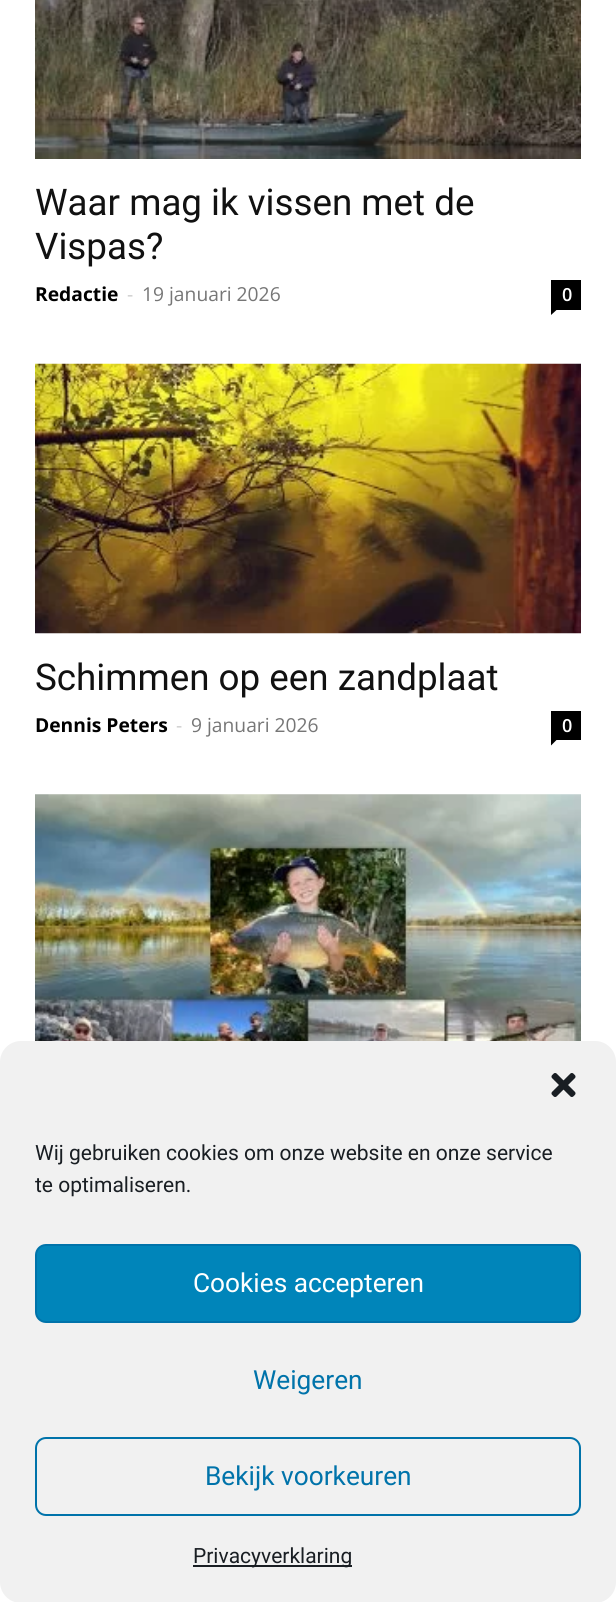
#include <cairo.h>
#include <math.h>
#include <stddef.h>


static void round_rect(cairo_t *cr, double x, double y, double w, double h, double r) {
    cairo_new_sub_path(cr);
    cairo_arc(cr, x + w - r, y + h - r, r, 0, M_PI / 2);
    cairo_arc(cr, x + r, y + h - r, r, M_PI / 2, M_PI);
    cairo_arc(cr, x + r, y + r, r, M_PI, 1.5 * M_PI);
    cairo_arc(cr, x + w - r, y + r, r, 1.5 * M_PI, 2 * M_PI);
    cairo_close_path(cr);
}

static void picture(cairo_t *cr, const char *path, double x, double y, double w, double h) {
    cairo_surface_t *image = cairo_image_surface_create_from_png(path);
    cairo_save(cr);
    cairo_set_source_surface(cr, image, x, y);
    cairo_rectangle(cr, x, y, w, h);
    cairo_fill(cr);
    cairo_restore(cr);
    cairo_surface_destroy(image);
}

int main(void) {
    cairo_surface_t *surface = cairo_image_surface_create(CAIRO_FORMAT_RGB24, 616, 1602);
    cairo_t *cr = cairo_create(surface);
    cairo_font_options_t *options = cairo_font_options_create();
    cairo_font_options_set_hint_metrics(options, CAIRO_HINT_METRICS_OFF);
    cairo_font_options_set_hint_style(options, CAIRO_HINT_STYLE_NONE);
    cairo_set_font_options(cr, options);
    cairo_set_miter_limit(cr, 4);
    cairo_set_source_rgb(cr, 1, 1, 1);
    cairo_paint(cr);
    picture(cr, "img1.png", 35, 0, 546, 159);
    cairo_select_font_face(cr, "Roboto", CAIRO_FONT_SLANT_NORMAL, CAIRO_FONT_WEIGHT_NORMAL);
    cairo_set_font_size(cr, 36.75);
    cairo_set_source_rgb(cr, 0.067, 0.067, 0.067);
    cairo_move_to(cr, 35, 215);
    cairo_show_text(cr, "Waar mag ik vissen met de");
    cairo_move_to(cr, 35, 259);
    cairo_show_text(cr, "Vispas?");
    cairo_select_font_face(cr, "Open Sans", CAIRO_FONT_SLANT_NORMAL, CAIRO_FONT_WEIGHT_BOLD);
    cairo_set_font_size(cr, 19.25);
    cairo_set_source_rgb(cr, 0, 0, 0);
    cairo_move_to(cr, 35, 301);
    cairo_show_text(cr, "Redactie");
    cairo_select_font_face(cr, "Open Sans", CAIRO_FONT_SLANT_NORMAL, CAIRO_FONT_WEIGHT_NORMAL);
    cairo_set_source_rgb(cr, 0.8, 0.8, 0.8);
    cairo_move_to(cr, 127, 301);
    cairo_show_text(cr, "-");
    cairo_set_source_rgb(cr, 0.463, 0.463, 0.463);
    cairo_move_to(cr, 142, 301);
    cairo_show_text(cr, "19 januari 2026");
    cairo_set_source_rgb(cr, 0, 0, 0);
    cairo_rectangle(cr, 551, 280, 30, 30);
    cairo_fill(cr);
    cairo_select_font_face(cr, "Open Sans SemiBold", CAIRO_FONT_SLANT_NORMAL, CAIRO_FONT_WEIGHT_NORMAL);
    cairo_set_font_size(cr, 18);
    cairo_set_source_rgb(cr, 1, 1, 1);
    cairo_move_to(cr, 562, 301);
    cairo_show_text(cr, "0");
    cairo_set_source_rgb(cr, 0, 0, 0);
    cairo_new_path(cr);
    cairo_move_to(cr, 551, 310);
    cairo_line_to(cr, 556.5, 310);
    cairo_line_to(cr, 551, 315);
    cairo_close_path(cr);
    cairo_fill(cr);
    picture(cr, "img2.png", 35, 363, 546, 271);
    cairo_select_font_face(cr, "Roboto", CAIRO_FONT_SLANT_NORMAL, CAIRO_FONT_WEIGHT_NORMAL);
    cairo_set_font_size(cr, 36.75);
    cairo_set_source_rgb(cr, 0.067, 0.067, 0.067);
    cairo_move_to(cr, 35, 690);
    cairo_show_text(cr, "Schimmen op een zandplaat");
    cairo_select_font_face(cr, "Open Sans", CAIRO_FONT_SLANT_NORMAL, CAIRO_FONT_WEIGHT_BOLD);
    cairo_set_font_size(cr, 19.25);
    cairo_set_source_rgb(cr, 0, 0, 0);
    cairo_move_to(cr, 35, 732);
    cairo_show_text(cr, "Dennis Peters");
    cairo_select_font_face(cr, "Open Sans", CAIRO_FONT_SLANT_NORMAL, CAIRO_FONT_WEIGHT_NORMAL);
    cairo_set_source_rgb(cr, 0.8, 0.8, 0.8);
    cairo_move_to(cr, 176, 732);
    cairo_show_text(cr, "-");
    cairo_set_source_rgb(cr, 0.463, 0.463, 0.463);
    cairo_move_to(cr, 191, 732);
    cairo_show_text(cr, "9 januari 2026");
    cairo_set_source_rgb(cr, 0, 0, 0);
    cairo_rectangle(cr, 551, 711, 30, 29);
    cairo_fill(cr);
    cairo_select_font_face(cr, "Open Sans SemiBold", CAIRO_FONT_SLANT_NORMAL, CAIRO_FONT_WEIGHT_NORMAL);
    cairo_set_font_size(cr, 18);
    cairo_set_source_rgb(cr, 1, 1, 1);
    cairo_move_to(cr, 562, 732);
    cairo_show_text(cr, "0");
    cairo_set_source_rgb(cr, 0, 0, 0);
    cairo_new_path(cr);
    cairo_move_to(cr, 551, 740);
    cairo_line_to(cr, 556.5, 740);
    cairo_line_to(cr, 551, 745.5);
    cairo_close_path(cr);
    cairo_fill(cr);
    picture(cr, "img3.png", 35, 794, 546, 247);
    cairo_set_source_rgb(cr, 0.945, 0.945, 0.945);
    round_rect(cr, 0, 1041, 616, 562, 21);
    cairo_fill(cr);
    picture(cr, "img4.png", 551, 1073, 25, 24);
    cairo_select_font_face(cr, "Roboto", CAIRO_FONT_SLANT_NORMAL, CAIRO_FONT_WEIGHT_NORMAL);
    cairo_set_font_size(cr, 21);
    cairo_set_source_rgb(cr, 0.098, 0.118, 0.137);
    cairo_move_to(cr, 35, 1160);
    cairo_show_text(cr, "Wij gebruiken cookies om onze website en onze service");
    cairo_move_to(cr, 35, 1192);
    cairo_show_text(cr, "te optimaliseren.");
    cairo_set_source_rgb(cr, 0, 0.522, 0.729);
    round_rect(cr, 36, 1245, 544, 77, 10);
    cairo_fill_preserve(cr);
    cairo_set_source_rgb(cr, 0, 0.451, 0.667);
    cairo_stroke(cr);
    cairo_set_font_size(cr, 26.25);
    cairo_set_source_rgb(cr, 1, 1, 1);
    cairo_move_to(cr, 193, 1292);
    cairo_show_text(cr, "Cookies accepteren");
    cairo_set_source_rgb(cr, 0, 0.451, 0.667);
    cairo_move_to(cr, 253, 1389);
    cairo_show_text(cr, "Weigeren");
    round_rect(cr, 36, 1438, 544, 77, 10);
    cairo_stroke(cr);
    cairo_move_to(cr, 205, 1485);
    cairo_show_text(cr, "Bekijk voorkeuren");
    cairo_set_source_rgb(cr, 0.098, 0.118, 0.137);
    cairo_rectangle(cr, 193, 1565, 159, 2);
    cairo_fill(cr);
    cairo_set_font_size(cr, 21);
    cairo_move_to(cr, 193, 1563);
    cairo_show_text(cr, "Privacyverklaring");
    cairo_surface_write_to_png(surface, "page.png");
    cairo_font_options_destroy(options);
    cairo_destroy(cr);
    cairo_surface_destroy(surface);
    return 0;
}
